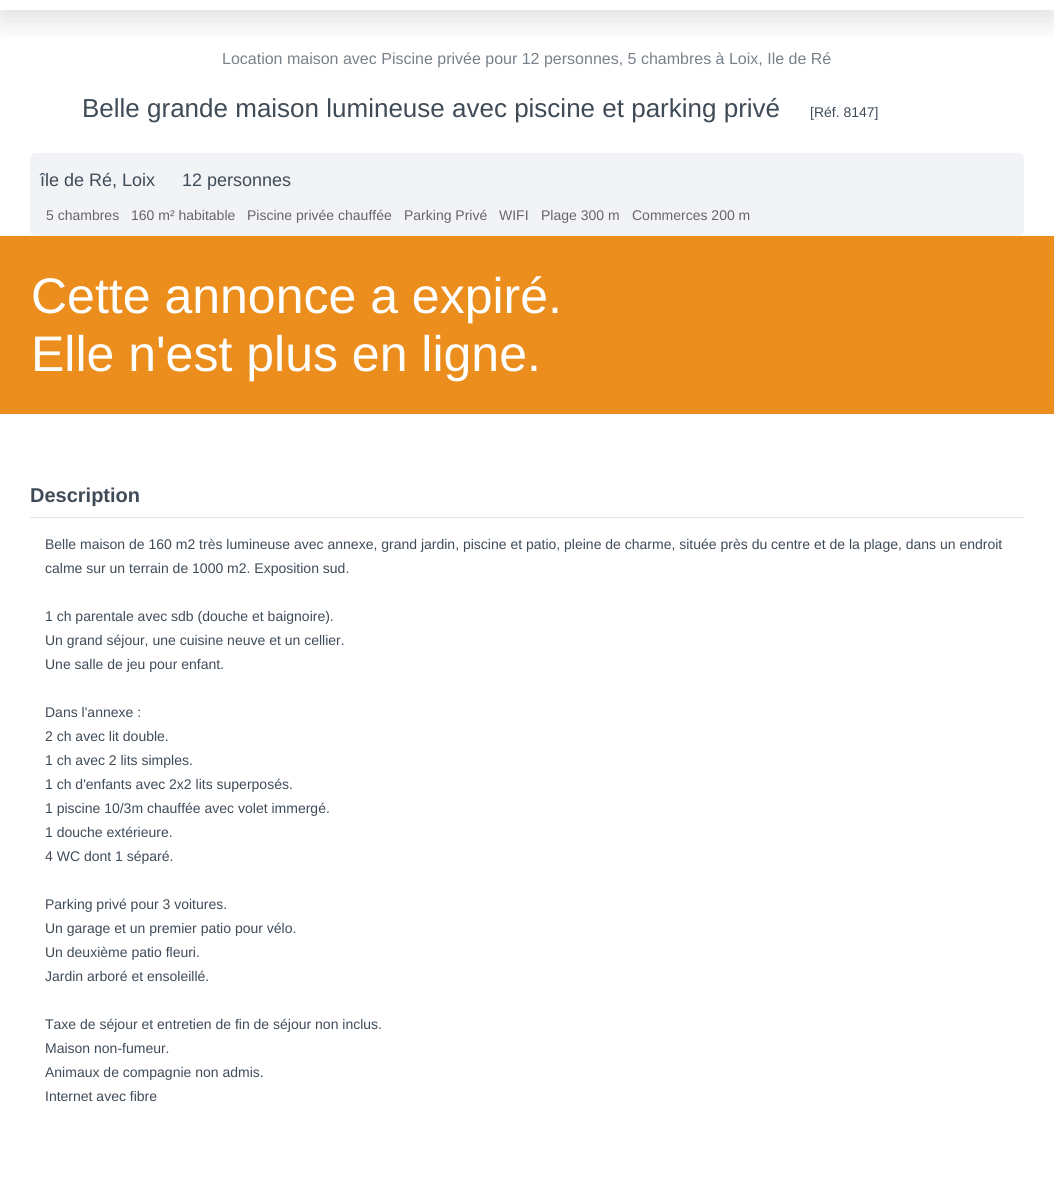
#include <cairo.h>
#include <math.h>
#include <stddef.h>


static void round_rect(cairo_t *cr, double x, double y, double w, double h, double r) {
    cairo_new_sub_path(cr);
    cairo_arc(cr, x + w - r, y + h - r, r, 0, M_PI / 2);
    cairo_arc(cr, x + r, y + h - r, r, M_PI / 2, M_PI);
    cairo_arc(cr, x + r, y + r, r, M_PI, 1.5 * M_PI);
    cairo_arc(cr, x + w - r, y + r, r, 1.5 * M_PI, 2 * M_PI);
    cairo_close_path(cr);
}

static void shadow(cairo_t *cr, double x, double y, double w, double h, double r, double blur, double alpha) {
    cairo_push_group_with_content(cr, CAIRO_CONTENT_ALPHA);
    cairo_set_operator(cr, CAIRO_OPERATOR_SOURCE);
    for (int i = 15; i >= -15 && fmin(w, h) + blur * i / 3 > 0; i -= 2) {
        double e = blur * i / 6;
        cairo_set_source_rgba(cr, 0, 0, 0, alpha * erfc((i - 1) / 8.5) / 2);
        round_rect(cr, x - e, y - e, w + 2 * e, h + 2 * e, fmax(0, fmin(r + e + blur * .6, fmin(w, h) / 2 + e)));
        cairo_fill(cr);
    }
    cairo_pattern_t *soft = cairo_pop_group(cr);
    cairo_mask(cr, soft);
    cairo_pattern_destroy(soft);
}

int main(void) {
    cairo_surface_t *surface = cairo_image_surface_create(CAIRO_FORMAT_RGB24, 1054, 1193);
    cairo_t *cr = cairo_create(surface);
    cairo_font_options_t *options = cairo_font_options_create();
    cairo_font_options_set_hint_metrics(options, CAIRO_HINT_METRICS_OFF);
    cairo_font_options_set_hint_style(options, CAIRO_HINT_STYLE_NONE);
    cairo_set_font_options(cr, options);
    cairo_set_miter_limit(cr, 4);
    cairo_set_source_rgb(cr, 1, 1, 1);
    cairo_paint(cr);
    cairo_save(cr);
    cairo_rectangle(cr, 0, 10, 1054, 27);
    cairo_clip(cr);
    cairo_set_source_rgb(cr, 0.129, 0.145, 0.161);
    shadow(cr, 0, -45, 1054, 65, 0, 15, 0.15);
    cairo_restore(cr);
    cairo_select_font_face(cr, "Liberation Sans", CAIRO_FONT_SLANT_NORMAL, CAIRO_FONT_WEIGHT_NORMAL);
    cairo_set_font_size(cr, 16);
    cairo_set_source_rgb(cr, 0.471, 0.506, 0.541);
    cairo_move_to(cr, 222, 64);
    cairo_show_text(cr, "Location maison avec Piscine privée pour 12 personnes, 5 chambres à Loix, Ile de Ré");
    cairo_set_font_size(cr, 26);
    cairo_set_source_rgb(cr, 0.247, 0.294, 0.341);
    cairo_move_to(cr, 82, 117);
    cairo_show_text(cr, "Belle grande maison lumineuse avec piscine et parking privé");
    cairo_set_font_size(cr, 14);
    cairo_move_to(cr, 810, 117);
    cairo_show_text(cr, "[Réf. 8147]");
    cairo_set_source_rgb(cr, 0.949, 0.953, 0.965);
    round_rect(cr, 30, 153, 994, 83, 6);
    cairo_fill(cr);
    cairo_set_font_size(cr, 18);
    cairo_set_source_rgb(cr, 0.247, 0.294, 0.341);
    cairo_move_to(cr, 40, 186);
    cairo_show_text(cr, "île de Ré, Loix");
    cairo_move_to(cr, 182, 186);
    cairo_show_text(cr, "12 personnes");
    cairo_set_font_size(cr, 14);
    cairo_set_source_rgb(cr, 0.4, 0.4, 0.4);
    cairo_move_to(cr, 46, 220);
    cairo_show_text(cr, "5 chambres");
    cairo_move_to(cr, 131, 220);
    cairo_show_text(cr, "160 m² habitable");
    cairo_move_to(cr, 247, 220);
    cairo_show_text(cr, "Piscine privée chauffée");
    cairo_move_to(cr, 404, 220);
    cairo_show_text(cr, "Parking Privé");
    cairo_move_to(cr, 499, 220);
    cairo_show_text(cr, "WIFI");
    cairo_move_to(cr, 541, 220);
    cairo_show_text(cr, "Plage 300 m");
    cairo_move_to(cr, 632, 220);
    cairo_show_text(cr, "Commerces 200 m");
    cairo_set_source_rgb(cr, 0.922, 0.557, 0.118);
    cairo_rectangle(cr, 0, 236, 1054, 178);
    cairo_fill(cr);
    cairo_set_font_size(cr, 50);
    cairo_set_source_rgb(cr, 1, 1, 1);
    cairo_move_to(cr, 31, 313);
    cairo_show_text(cr, "Cette annonce a expiré.");
    cairo_move_to(cr, 31, 371);
    cairo_show_text(cr, "Elle n'est plus en ligne.");
    cairo_set_source_rgb(cr, 0.89, 0.89, 0.89);
    cairo_rectangle(cr, 30, 517, 994, 1);
    cairo_fill(cr);
    cairo_select_font_face(cr, "Liberation Sans", CAIRO_FONT_SLANT_NORMAL, CAIRO_FONT_WEIGHT_BOLD);
    cairo_set_font_size(cr, 20);
    cairo_set_source_rgb(cr, 0.247, 0.294, 0.341);
    cairo_move_to(cr, 30, 502);
    cairo_show_text(cr, "Description");
    cairo_select_font_face(cr, "Liberation Sans", CAIRO_FONT_SLANT_NORMAL, CAIRO_FONT_WEIGHT_NORMAL);
    cairo_set_font_size(cr, 14);
    cairo_move_to(cr, 45, 549);
    cairo_show_text(cr, "Belle maison de 160 m2 très lumineuse avec annexe, grand jardin, piscine et patio, pleine de charme, située près du centre et de la plage, dans un endroit");
    cairo_move_to(cr, 45, 573);
    cairo_show_text(cr, "calme sur un terrain de 1000 m2. Exposition sud.");
    cairo_move_to(cr, 45, 621);
    cairo_show_text(cr, "1 ch parentale avec sdb (douche et baignoire).");
    cairo_move_to(cr, 45, 645);
    cairo_show_text(cr, "Un grand séjour, une cuisine neuve et un cellier.");
    cairo_move_to(cr, 45, 669);
    cairo_show_text(cr, "Une salle de jeu pour enfant.");
    cairo_move_to(cr, 45, 717);
    cairo_show_text(cr, "Dans l'annexe :");
    cairo_move_to(cr, 45, 741);
    cairo_show_text(cr, "2 ch avec lit double.");
    cairo_move_to(cr, 45, 765);
    cairo_show_text(cr, "1 ch avec 2 lits simples.");
    cairo_move_to(cr, 45, 789);
    cairo_show_text(cr, "1 ch d'enfants avec 2x2 lits superposés.");
    cairo_move_to(cr, 45, 813);
    cairo_show_text(cr, "1 piscine 10/3m chauffée avec volet immergé.");
    cairo_move_to(cr, 45, 837);
    cairo_show_text(cr, "1 douche extérieure.");
    cairo_move_to(cr, 45, 861);
    cairo_show_text(cr, "4 WC dont 1 séparé.");
    cairo_move_to(cr, 45, 909);
    cairo_show_text(cr, "Parking privé pour 3 voitures.");
    cairo_move_to(cr, 45, 933);
    cairo_show_text(cr, "Un garage et un premier patio pour vélo.");
    cairo_move_to(cr, 45, 957);
    cairo_show_text(cr, "Un deuxième patio fleuri.");
    cairo_move_to(cr, 45, 981);
    cairo_show_text(cr, "Jardin arboré et ensoleillé.");
    cairo_move_to(cr, 45, 1029);
    cairo_show_text(cr, "Taxe de séjour et entretien de fin de séjour non inclus.");
    cairo_move_to(cr, 45, 1053);
    cairo_show_text(cr, "Maison non-fumeur.");
    cairo_move_to(cr, 45, 1077);
    cairo_show_text(cr, "Animaux de compagnie non admis.");
    cairo_move_to(cr, 45, 1101);
    cairo_show_text(cr, "Internet avec fibre");
    cairo_surface_write_to_png(surface, "page.png");
    cairo_font_options_destroy(options);
    cairo_destroy(cr);
    cairo_surface_destroy(surface);
    return 0;
}
